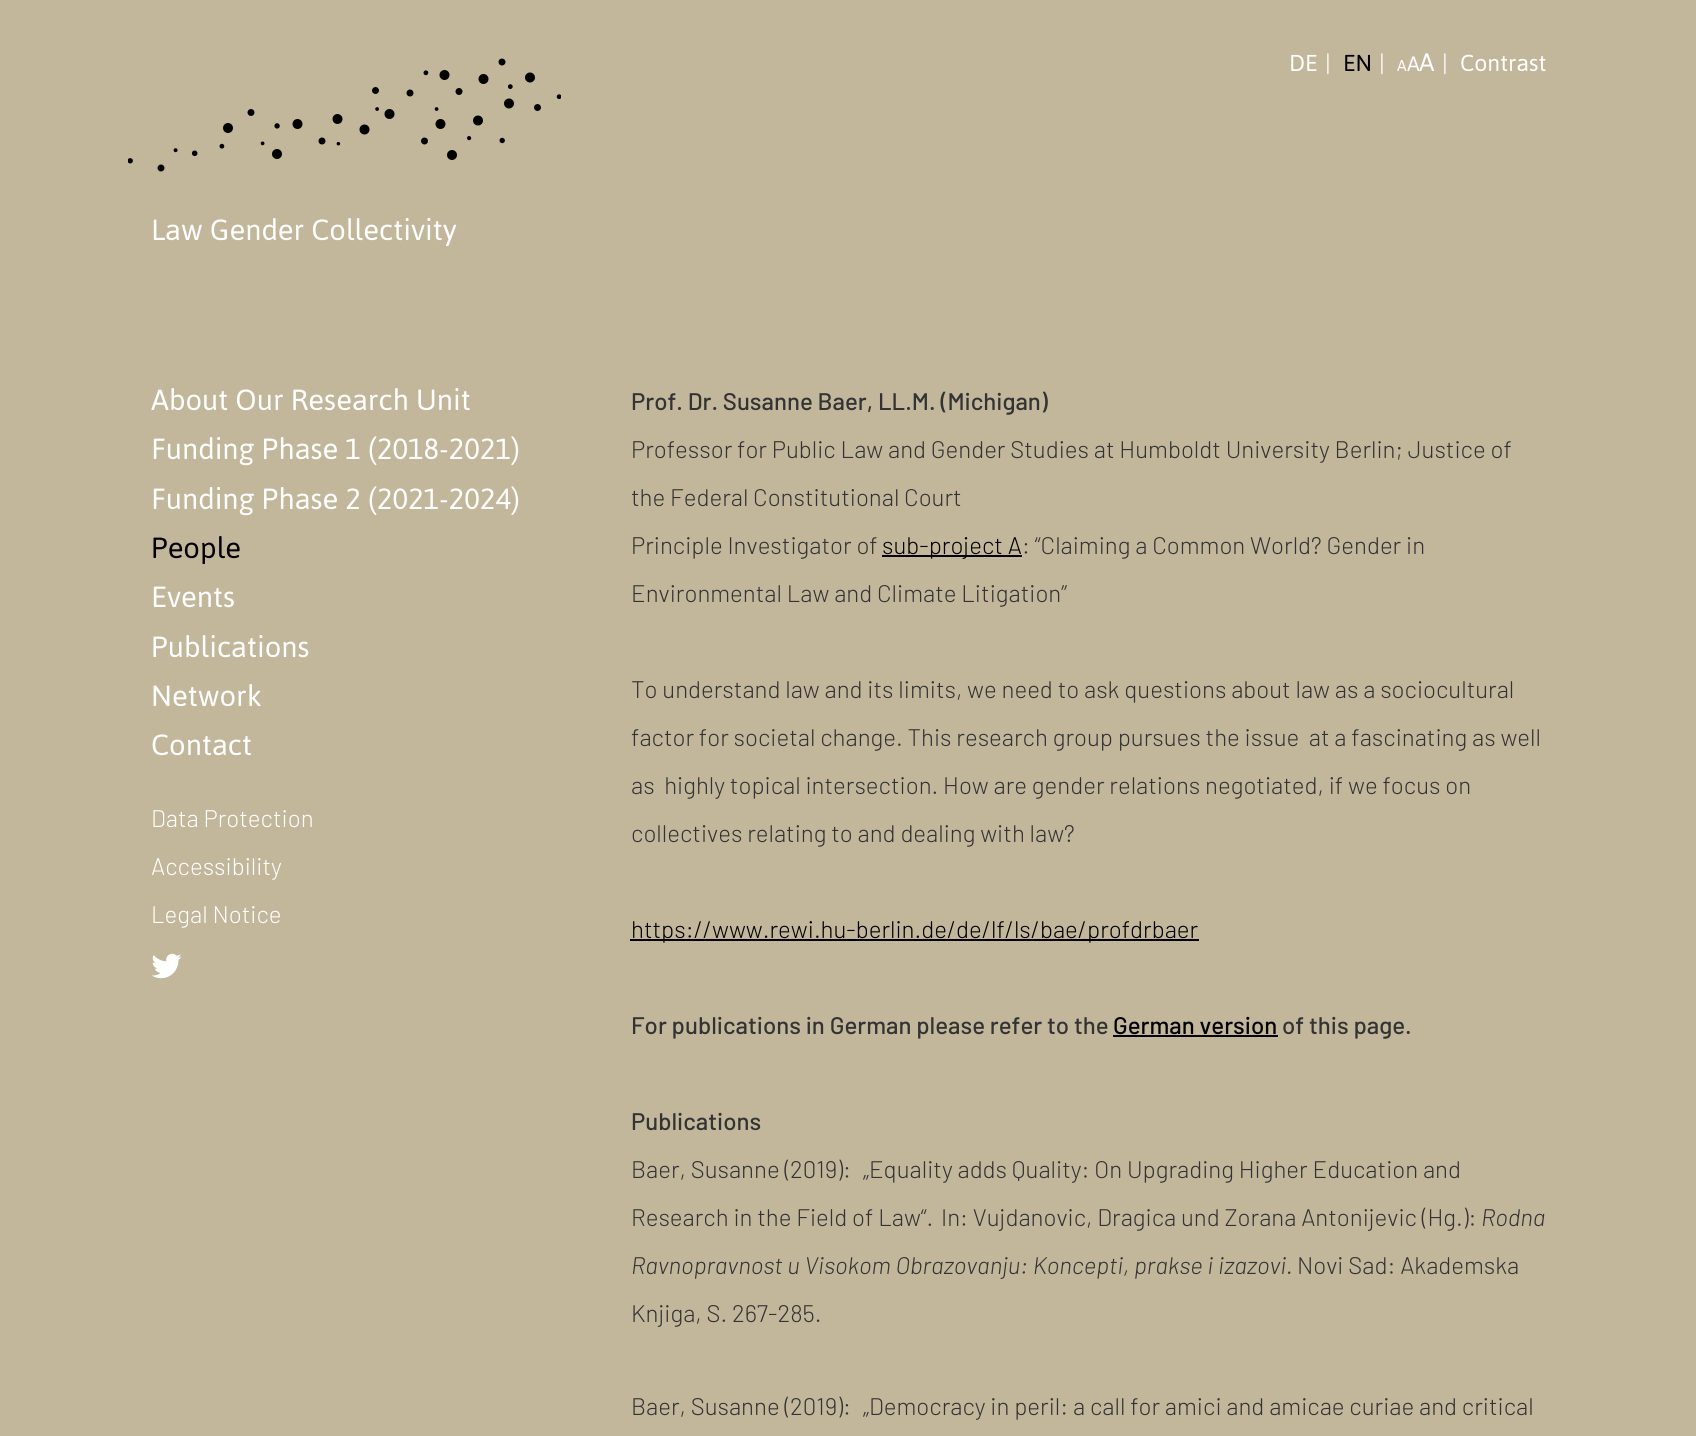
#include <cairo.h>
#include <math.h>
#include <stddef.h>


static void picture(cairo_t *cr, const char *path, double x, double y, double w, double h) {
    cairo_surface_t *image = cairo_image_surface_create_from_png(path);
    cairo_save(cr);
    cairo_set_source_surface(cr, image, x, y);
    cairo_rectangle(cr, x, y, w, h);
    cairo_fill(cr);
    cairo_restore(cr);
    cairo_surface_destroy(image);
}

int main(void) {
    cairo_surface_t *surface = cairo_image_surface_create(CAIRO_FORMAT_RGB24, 1696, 1436);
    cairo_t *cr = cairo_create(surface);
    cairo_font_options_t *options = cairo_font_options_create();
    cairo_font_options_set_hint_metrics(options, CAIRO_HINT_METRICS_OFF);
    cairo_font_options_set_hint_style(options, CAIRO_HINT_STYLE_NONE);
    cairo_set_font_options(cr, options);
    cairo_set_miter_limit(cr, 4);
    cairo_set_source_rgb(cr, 0.761, 0.714, 0.608);
    cairo_paint(cr);
    cairo_select_font_face(cr, "Jaldi", CAIRO_FONT_SLANT_NORMAL, CAIRO_FONT_WEIGHT_NORMAL);
    cairo_set_font_size(cr, 26.5);
    cairo_set_source_rgb(cr, 1, 1, 1);
    cairo_move_to(cr, 1289, 71);
    cairo_show_text(cr, "DE");
    cairo_move_to(cr, 1325, 71);
    cairo_show_text(cr, "|");
    cairo_set_source_rgb(cr, 0, 0, 0);
    cairo_move_to(cr, 1343, 71);
    cairo_show_text(cr, "EN");
    cairo_set_source_rgb(cr, 1, 1, 1);
    cairo_move_to(cr, 1379, 71);
    cairo_show_text(cr, "|");
    cairo_set_font_size(cr, 24);
    cairo_move_to(cr, 1407, 71);
    cairo_show_text(cr, "A");
    cairo_set_font_size(cr, 18);
    cairo_move_to(cr, 1397, 71);
    cairo_show_text(cr, "A");
    cairo_set_font_size(cr, 29);
    cairo_move_to(cr, 1419, 71);
    cairo_show_text(cr, "A");
    cairo_set_font_size(cr, 26.5);
    cairo_move_to(cr, 1442, 71);
    cairo_show_text(cr, "|");
    cairo_move_to(cr, 1460, 71);
    cairo_show_text(cr, "Contrast");
    picture(cr, "img1.png", 128, 58, 433, 114);
    cairo_set_font_size(cr, 33.6);
    cairo_move_to(cr, 151, 240);
    cairo_show_text(cr, "Law Gender Collectivity");
    cairo_move_to(cr, 151, 410);
    cairo_show_text(cr, "About Our Research Unit");
    cairo_move_to(cr, 151, 459);
    cairo_show_text(cr, "Funding Phase 1 (2018-2021)");
    cairo_move_to(cr, 151, 509);
    cairo_show_text(cr, "Funding Phase 2 (2021-2024)");
    cairo_set_source_rgb(cr, 0, 0, 0);
    cairo_move_to(cr, 151, 558);
    cairo_show_text(cr, "People");
    cairo_set_source_rgb(cr, 1, 1, 1);
    cairo_move_to(cr, 151, 607);
    cairo_show_text(cr, "Events");
    cairo_move_to(cr, 151, 657);
    cairo_show_text(cr, "Publications");
    cairo_move_to(cr, 151, 706);
    cairo_show_text(cr, "Network");
    cairo_move_to(cr, 151, 755);
    cairo_show_text(cr, "Contact");
    cairo_select_font_face(cr, "Barlow Light", CAIRO_FONT_SLANT_NORMAL, CAIRO_FONT_WEIGHT_NORMAL);
    cairo_set_font_size(cr, 24);
    cairo_move_to(cr, 151, 827);
    cairo_show_text(cr, "Data Protection");
    cairo_move_to(cr, 151, 875);
    cairo_show_text(cr, "Accessibility");
    cairo_move_to(cr, 151, 923);
    cairo_show_text(cr, "Legal Notice");
    picture(cr, "img2.png", 151, 953, 31, 26);
    cairo_select_font_face(cr, "Barlow Medium", CAIRO_FONT_SLANT_NORMAL, CAIRO_FONT_WEIGHT_NORMAL);
    cairo_set_source_rgb(cr, 0.2, 0.2, 0.2);
    cairo_move_to(cr, 631, 410);
    cairo_show_text(cr, "Prof. Dr. Susanne Baer, LL.M. (Michigan)");
    cairo_select_font_face(cr, "Barlow Light", CAIRO_FONT_SLANT_NORMAL, CAIRO_FONT_WEIGHT_NORMAL);
    cairo_move_to(cr, 631, 458);
    cairo_show_text(cr, "Professor for Public Law and Gender Studies at Humboldt University Berlin; Justice of");
    cairo_move_to(cr, 631, 506);
    cairo_show_text(cr, "the Federal Constitutional Court");
    cairo_move_to(cr, 631, 554);
    cairo_show_text(cr, "Principle Investigator of");
    cairo_set_source_rgb(cr, 0, 0, 0);
    cairo_rectangle(cr, 882, 555, 140, 2);
    cairo_fill(cr);
    cairo_move_to(cr, 882, 554);
    cairo_show_text(cr, "sub-project A");
    cairo_set_source_rgb(cr, 0.2, 0.2, 0.2);
    cairo_move_to(cr, 1022, 554);
    cairo_show_text(cr, ": “Claiming a Common World? Gender in");
    cairo_move_to(cr, 631, 602);
    cairo_show_text(cr, "Environmental Law and Climate Litigation”");
    cairo_move_to(cr, 631, 698);
    cairo_show_text(cr, "To understand law and its limits, we need to ask questions about law as a sociocultural");
    cairo_move_to(cr, 631, 746);
    cairo_show_text(cr, "factor for societal change. This research group pursues the issue  at a fascinating as well");
    cairo_move_to(cr, 631, 794);
    cairo_show_text(cr, "as  highly topical intersection. How are gender relations negotiated, if we focus on");
    cairo_move_to(cr, 631, 842);
    cairo_show_text(cr, "collectives relating to and dealing with law?");
    cairo_set_source_rgb(cr, 0, 0, 0);
    cairo_rectangle(cr, 630, 939, 569, 2);
    cairo_fill(cr);
    cairo_move_to(cr, 631, 938);
    cairo_show_text(cr, "https://www.rewi.hu-berlin.de/de/lf/ls/bae/profdrbaer");
    cairo_select_font_face(cr, "Barlow Medium", CAIRO_FONT_SLANT_NORMAL, CAIRO_FONT_WEIGHT_NORMAL);
    cairo_set_source_rgb(cr, 0.2, 0.2, 0.2);
    cairo_move_to(cr, 631, 1034);
    cairo_show_text(cr, "For publications in German please refer to the");
    cairo_set_source_rgb(cr, 0, 0, 0);
    cairo_move_to(cr, 1113, 1034);
    cairo_show_text(cr, "German version");
    cairo_rectangle(cr, 1113, 1035, 165, 2);
    cairo_fill(cr);
    cairo_set_source_rgb(cr, 0.2, 0.2, 0.2);
    cairo_move_to(cr, 1282, 1034);
    cairo_show_text(cr, "of this page.");
    cairo_move_to(cr, 631, 1130);
    cairo_show_text(cr, "Publications");
    cairo_select_font_face(cr, "Barlow Light", CAIRO_FONT_SLANT_NORMAL, CAIRO_FONT_WEIGHT_NORMAL);
    cairo_move_to(cr, 631, 1178);
    cairo_show_text(cr, "Baer, Susanne (2019):");
    cairo_move_to(cr, 863, 1178);
    cairo_show_text(cr, "„Equality adds Quality: On Upgrading Higher Education and");
    cairo_move_to(cr, 631, 1226);
    cairo_show_text(cr, "Research in the Field of Law“.");
    cairo_move_to(cr, 941, 1226);
    cairo_show_text(cr, "In: Vujdanovic, Dragica und Zorana Antonijevic (Hg.):");
    cairo_select_font_face(cr, "Barlow Light", CAIRO_FONT_SLANT_ITALIC, CAIRO_FONT_WEIGHT_NORMAL);
    cairo_move_to(cr, 1481, 1226);
    cairo_show_text(cr, "Rodna");
    cairo_move_to(cr, 631, 1274);
    cairo_show_text(cr, "Ravnopravnost u Visokom Obrazovanju: Koncepti, prakse i izazovi.");
    cairo_select_font_face(cr, "Barlow Light", CAIRO_FONT_SLANT_NORMAL, CAIRO_FONT_WEIGHT_NORMAL);
    cairo_move_to(cr, 1297, 1274);
    cairo_show_text(cr, "Novi Sad: Akademska");
    cairo_move_to(cr, 631, 1322);
    cairo_show_text(cr, "Knjiga, S. 267-285.");
    cairo_move_to(cr, 631, 1415);
    cairo_show_text(cr, "Baer, Susanne (2019):");
    cairo_move_to(cr, 863, 1415);
    cairo_show_text(cr, "„Democracy in peril: a call for amici and amicae curiae and critical");
    cairo_surface_write_to_png(surface, "page.png");
    cairo_font_options_destroy(options);
    cairo_destroy(cr);
    cairo_surface_destroy(surface);
    return 0;
}
